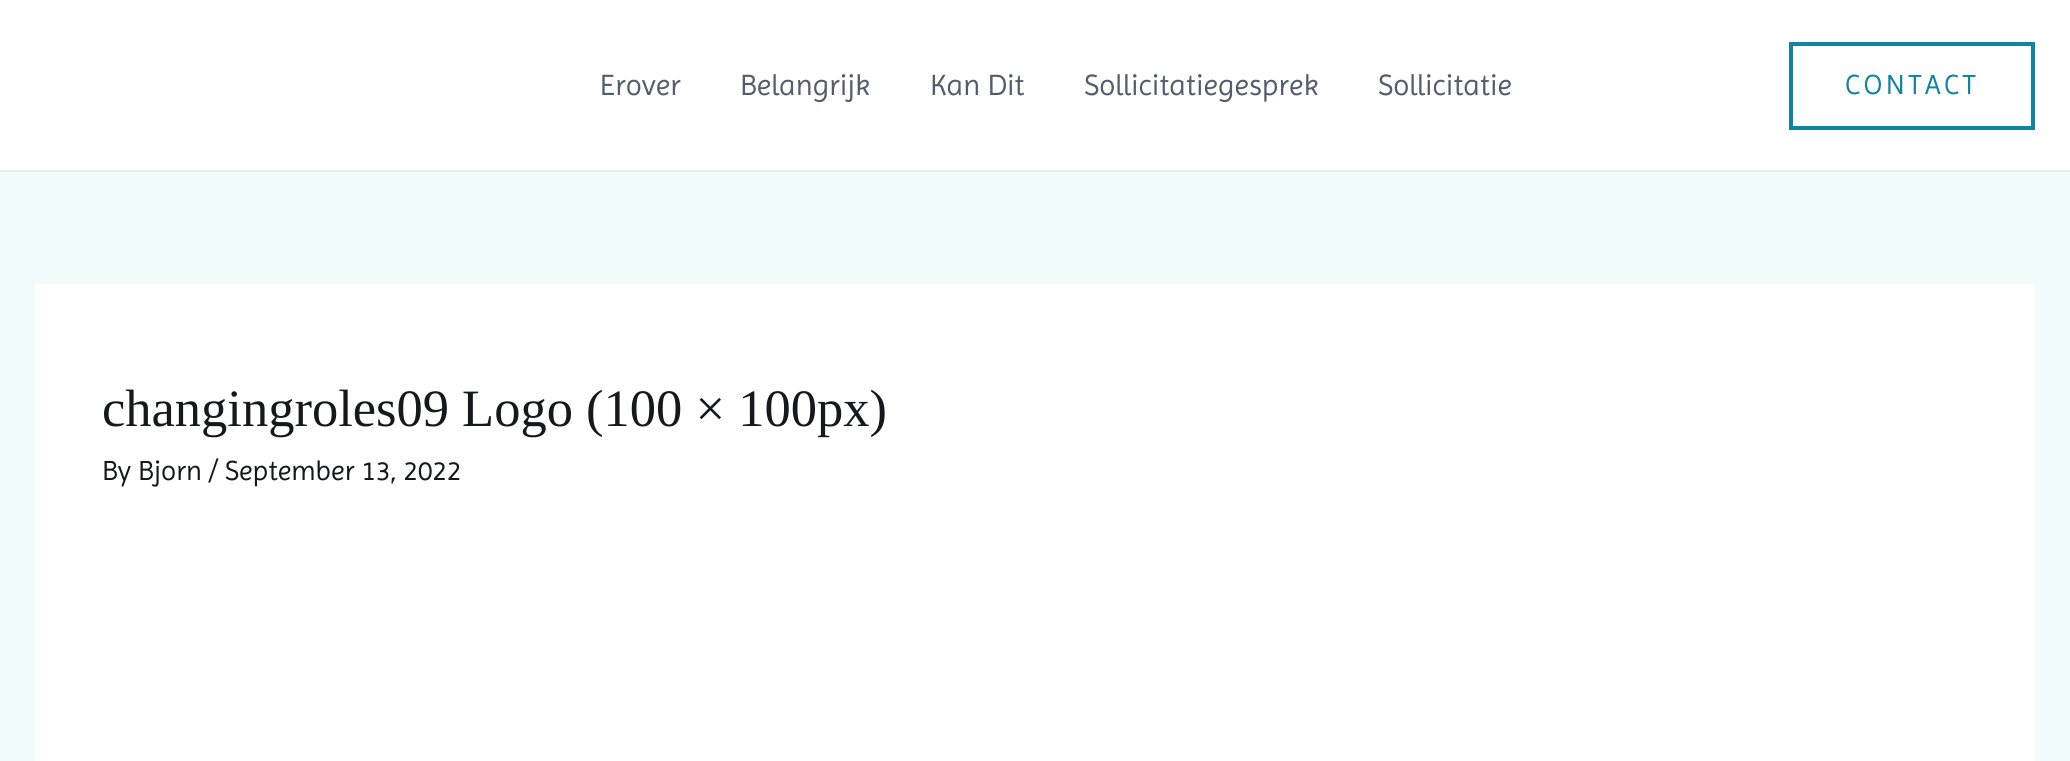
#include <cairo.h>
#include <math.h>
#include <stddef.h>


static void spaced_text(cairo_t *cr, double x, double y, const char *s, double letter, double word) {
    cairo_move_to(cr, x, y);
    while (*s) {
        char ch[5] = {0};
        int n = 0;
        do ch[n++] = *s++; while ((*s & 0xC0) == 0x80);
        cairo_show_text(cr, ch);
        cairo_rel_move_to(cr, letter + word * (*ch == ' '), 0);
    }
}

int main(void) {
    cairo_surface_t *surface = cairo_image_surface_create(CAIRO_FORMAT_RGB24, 2070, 761);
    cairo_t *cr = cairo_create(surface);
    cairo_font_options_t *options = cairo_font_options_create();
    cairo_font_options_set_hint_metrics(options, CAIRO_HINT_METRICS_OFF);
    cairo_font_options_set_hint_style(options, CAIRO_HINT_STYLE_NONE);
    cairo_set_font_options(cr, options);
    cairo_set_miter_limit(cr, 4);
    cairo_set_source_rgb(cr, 0.949, 0.984, 0.984);
    cairo_paint(cr);
    cairo_set_source_rgb(cr, 1, 1, 1);
    cairo_rectangle(cr, 0, 0, 2070, 170);
    cairo_fill(cr);
    cairo_set_source_rgb(cr, 0.918, 0.918, 0.918);
    cairo_rectangle(cr, 0, 170, 2070, 2);
    cairo_fill(cr);
    cairo_select_font_face(cr, "Imprima", CAIRO_FONT_SLANT_NORMAL, CAIRO_FONT_WEIGHT_NORMAL);
    cairo_set_font_size(cr, 29.75);
    cairo_set_source_rgb(cr, 0.333, 0.361, 0.427);
    cairo_move_to(cr, 600, 95);
    cairo_show_text(cr, "Erover");
    cairo_move_to(cr, 740, 95);
    cairo_show_text(cr, "Belangrijk");
    cairo_move_to(cr, 930, 95);
    cairo_show_text(cr, "Kan Dit");
    cairo_move_to(cr, 1084, 95);
    cairo_show_text(cr, "Sollicitatiegesprek");
    cairo_move_to(cr, 1378, 95);
    cairo_show_text(cr, "Sollicitatie");
    cairo_rectangle(cr, 1791, 44, 242, 84);
    cairo_set_source_rgb(cr, 0.071, 0.51, 0.647);
    cairo_set_line_width(cr, 4);
    cairo_stroke(cr);
    cairo_set_font_size(cr, 28);
    spaced_text(cr, 1845, 94, "CONTACT", 3.5, 0);
    cairo_set_source_rgb(cr, 1, 1, 1);
    cairo_rectangle(cr, 35, 284, 2000, 477);
    cairo_fill(cr);
    cairo_select_font_face(cr, "Liberation Serif", CAIRO_FONT_SLANT_NORMAL, CAIRO_FONT_WEIGHT_NORMAL);
    cairo_set_font_size(cr, 52.5);
    cairo_set_source_rgb(cr, 0.086, 0.094, 0.106);
    cairo_move_to(cr, 102, 426);
    cairo_show_text(cr, "changingroles09 Logo (100 × 100px)");
    cairo_select_font_face(cr, "Imprima", CAIRO_FONT_SLANT_NORMAL, CAIRO_FONT_WEIGHT_NORMAL);
    cairo_set_font_size(cr, 28);
    cairo_move_to(cr, 102, 480);
    cairo_show_text(cr, "By Bjorn / September 13, 2022");
    cairo_surface_write_to_png(surface, "page.png");
    cairo_font_options_destroy(options);
    cairo_destroy(cr);
    cairo_surface_destroy(surface);
    return 0;
}
